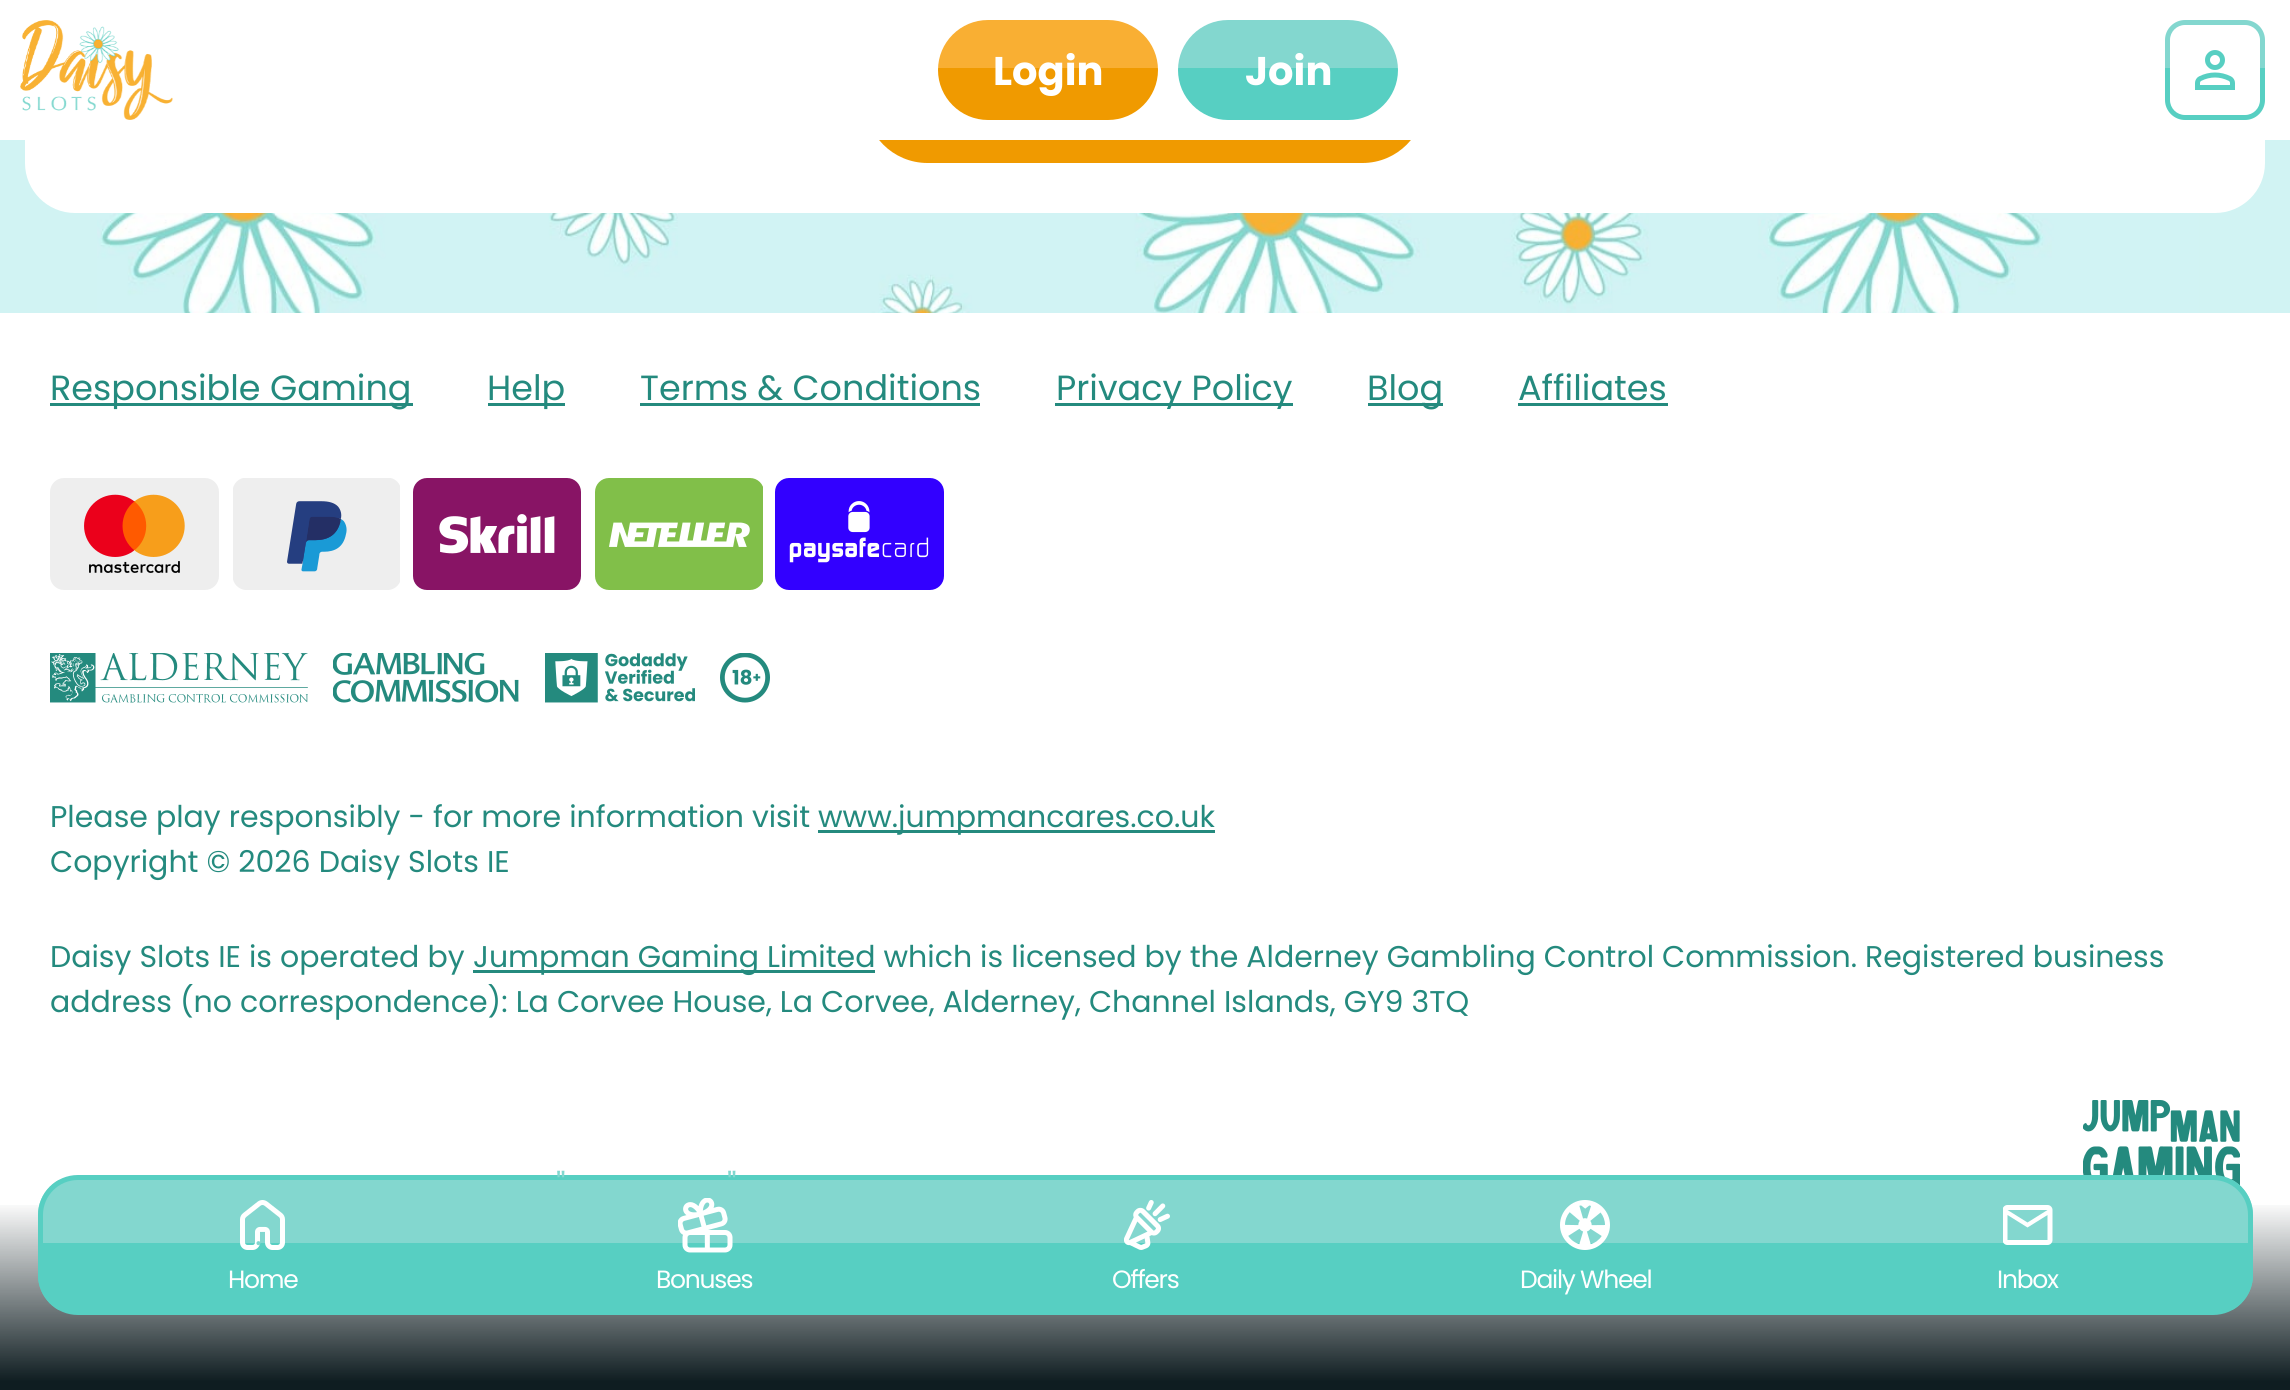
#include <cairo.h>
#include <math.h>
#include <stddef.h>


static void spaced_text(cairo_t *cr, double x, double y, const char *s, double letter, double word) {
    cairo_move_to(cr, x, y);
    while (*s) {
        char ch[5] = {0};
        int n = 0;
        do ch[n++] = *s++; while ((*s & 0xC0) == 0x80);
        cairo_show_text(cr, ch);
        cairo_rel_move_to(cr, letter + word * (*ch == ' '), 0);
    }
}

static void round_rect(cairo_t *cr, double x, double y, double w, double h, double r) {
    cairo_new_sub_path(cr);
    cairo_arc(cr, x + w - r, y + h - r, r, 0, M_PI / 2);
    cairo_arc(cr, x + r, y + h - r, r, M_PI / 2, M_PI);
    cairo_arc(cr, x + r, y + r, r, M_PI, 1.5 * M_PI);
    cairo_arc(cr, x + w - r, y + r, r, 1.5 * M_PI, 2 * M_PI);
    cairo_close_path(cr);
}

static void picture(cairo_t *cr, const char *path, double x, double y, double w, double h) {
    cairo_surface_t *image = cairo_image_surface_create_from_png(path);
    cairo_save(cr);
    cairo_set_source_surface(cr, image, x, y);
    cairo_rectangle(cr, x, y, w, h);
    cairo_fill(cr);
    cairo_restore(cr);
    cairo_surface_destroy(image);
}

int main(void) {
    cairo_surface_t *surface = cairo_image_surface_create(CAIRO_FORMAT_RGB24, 2290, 1390);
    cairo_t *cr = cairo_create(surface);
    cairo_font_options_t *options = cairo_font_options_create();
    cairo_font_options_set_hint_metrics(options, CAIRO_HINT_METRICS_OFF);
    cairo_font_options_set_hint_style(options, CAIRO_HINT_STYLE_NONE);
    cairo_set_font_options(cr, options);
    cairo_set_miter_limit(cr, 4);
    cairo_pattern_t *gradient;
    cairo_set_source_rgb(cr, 0.82, 0.953, 0.953);
    cairo_paint(cr);
    picture(cr, "img1.png", 97, 213, 2102, 100);
    cairo_set_source_rgb(cr, 1, 1, 1);
    round_rect(cr, 25, -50, 2240, 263, 50);
    cairo_fill(cr);
    cairo_save(cr);
    round_rect(cr, 865, 38, 560, 125, 62.5);
    cairo_clip(cr);
    cairo_set_source_rgb(cr, 0.941, 0.604, 0);
    cairo_new_path(cr);
    cairo_move_to(cr, 865, 98);
    cairo_line_to(cr, 1425, 98);
    cairo_line_to(cr, 1425, 100.5);
    cairo_curve_to(cr, 1425, 135, 1397, 163, 1362.5, 163);
    cairo_line_to(cr, 927.5, 163);
    cairo_curve_to(cr, 893, 163, 865, 135, 865, 100.5);
    cairo_close_path(cr);
    cairo_fill(cr);
    cairo_restore(cr);
    cairo_rectangle(cr, 0, 0, 2290, 140);
    cairo_fill(cr);
    picture(cr, "img2.png", 20, 20, 153, 100);
    cairo_save(cr);
    round_rect(cr, 938, 20, 220, 100, 50);
    cairo_clip(cr);
    cairo_set_source_rgb(cr, 0.973, 0.686, 0.2);
    cairo_rectangle(cr, 938, 20, 220, 48);
    cairo_fill(cr);
    cairo_set_source_rgb(cr, 0.941, 0.604, 0);
    cairo_new_path(cr);
    cairo_move_to(cr, 938, 68);
    cairo_line_to(cr, 1158, 68);
    cairo_line_to(cr, 1158, 70);
    cairo_curve_to(cr, 1158, 97.5, 1135.5, 120, 1108, 120);
    cairo_line_to(cr, 988, 120);
    cairo_curve_to(cr, 960.5, 120, 938, 97.5, 938, 70);
    cairo_close_path(cr);
    cairo_fill(cr);
    cairo_restore(cr);
    cairo_select_font_face(cr, "Poppins", CAIRO_FONT_SLANT_NORMAL, CAIRO_FONT_WEIGHT_BOLD);
    cairo_set_font_size(cr, 40);
    cairo_move_to(cr, 993, 85);
    cairo_show_text(cr, "Login");
    cairo_save(cr);
    round_rect(cr, 1178, 20, 220, 100, 50);
    cairo_clip(cr);
    cairo_set_source_rgb(cr, 0.514, 0.843, 0.812);
    cairo_rectangle(cr, 1178, 20, 220, 48);
    cairo_fill(cr);
    cairo_set_source_rgb(cr, 0.341, 0.812, 0.761);
    cairo_new_path(cr);
    cairo_move_to(cr, 1178, 68);
    cairo_line_to(cr, 1398, 68);
    cairo_line_to(cr, 1398, 70);
    cairo_curve_to(cr, 1398, 97.5, 1375.5, 120, 1348, 120);
    cairo_line_to(cr, 1228, 120);
    cairo_curve_to(cr, 1200.5, 120, 1178, 97.5, 1178, 70);
    cairo_close_path(cr);
    cairo_fill(cr);
    cairo_restore(cr);
    cairo_move_to(cr, 1245, 85);
    cairo_show_text(cr, "Join");
    cairo_set_source_rgb(cr, 0.514, 0.843, 0.812);
    cairo_new_path(cr);
    cairo_move_to(cr, 2185, 20);
    cairo_line_to(cr, 2245, 20);
    cairo_curve_to(cr, 2256, 20, 2265, 29, 2265, 40);
    cairo_line_to(cr, 2265, 68);
    cairo_line_to(cr, 2165, 68);
    cairo_line_to(cr, 2165, 40);
    cairo_curve_to(cr, 2165, 29, 2174, 20, 2185, 20);
    cairo_close_path(cr);
    cairo_fill(cr);
    cairo_set_source_rgb(cr, 0.341, 0.812, 0.761);
    cairo_new_path(cr);
    cairo_move_to(cr, 2165, 68);
    cairo_line_to(cr, 2265, 68);
    cairo_line_to(cr, 2265, 100);
    cairo_curve_to(cr, 2265, 111, 2256, 120, 2245, 120);
    cairo_line_to(cr, 2185, 120);
    cairo_curve_to(cr, 2174, 120, 2165, 111, 2165, 100);
    cairo_close_path(cr);
    cairo_fill(cr);
    cairo_set_source_rgb(cr, 1, 1, 1);
    round_rect(cr, 2170, 25, 90, 90, 15);
    cairo_fill(cr);
    picture(cr, "img3.png", 2195, 50, 40, 40);
    cairo_rectangle(cr, 0, 313, 2290, 1067);
    cairo_fill(cr);
    cairo_set_source_rgb(cr, 0.141, 0.541, 0.494);
    cairo_rectangle(cr, 50, 403, 363, 3);
    cairo_fill(cr);
    cairo_select_font_face(cr, "Poppins", CAIRO_FONT_SLANT_NORMAL, CAIRO_FONT_WEIGHT_NORMAL);
    cairo_set_font_size(cr, 35);
    cairo_move_to(cr, 50, 400);
    cairo_show_text(cr, "Responsible Gaming");
    cairo_rectangle(cr, 488, 403, 77, 3);
    cairo_fill(cr);
    cairo_move_to(cr, 487, 400);
    cairo_show_text(cr, "Help");
    cairo_move_to(cr, 640, 400);
    cairo_show_text(cr, "Terms & Conditions");
    cairo_rectangle(cr, 640, 403, 340, 3);
    cairo_fill(cr);
    cairo_rectangle(cr, 1055, 403, 238, 3);
    cairo_fill(cr);
    cairo_move_to(cr, 1056, 400);
    cairo_show_text(cr, "Privacy Policy");
    cairo_rectangle(cr, 1368, 403, 75, 3);
    cairo_fill(cr);
    cairo_move_to(cr, 1367, 400);
    cairo_show_text(cr, "Blog");
    cairo_move_to(cr, 1518, 400);
    cairo_show_text(cr, "Affiliates");
    cairo_rectangle(cr, 1518, 403, 150, 3);
    cairo_fill(cr);
    picture(cr, "img4.png", 50, 478, 169, 112);
    picture(cr, "img5.png", 233, 478, 167, 112);
    picture(cr, "img6.png", 413, 478, 168, 112);
    picture(cr, "img7.png", 595, 478, 168, 112);
    picture(cr, "img8.png", 775, 478, 169, 112);
    picture(cr, "img9.png", 50, 653, 258, 50);
    picture(cr, "img10.png", 333, 653, 186, 50);
    picture(cr, "img11.png", 545, 653, 150, 50);
    picture(cr, "img12.png", 720, 653, 50, 50);
    cairo_set_font_size(cr, 30);
    cairo_move_to(cr, 50, 827);
    cairo_show_text(cr, "Please play responsibly - for more information visit");
    cairo_rectangle(cr, 818, 830, 397, 3);
    cairo_fill(cr);
    cairo_move_to(cr, 818, 827);
    cairo_show_text(cr, "www.jumpmancares.co.uk");
    cairo_move_to(cr, 50, 872);
    cairo_show_text(cr, "Copyright © 2026 Daisy Slots IE");
    cairo_move_to(cr, 50, 967);
    cairo_show_text(cr, "Daisy Slots IE is operated by");
    cairo_rectangle(cr, 473, 970, 402, 3);
    cairo_fill(cr);
    cairo_move_to(cr, 473, 967);
    cairo_show_text(cr, "Jumpman Gaming Limited which is licensed by the Alderney Gambling Control Commission. Registered business");
    cairo_move_to(cr, 50, 1012);
    cairo_show_text(cr, "address (no correspondence): La Corvee House, La Corvee, Alderney, Channel Islands, GY9 3TQ");
    picture(cr, "img13.png", 2083, 1100, 157, 86);
    gradient = cairo_pattern_create_linear(1145, 1175, 1145, 1390);
    cairo_pattern_add_color_stop_rgba(gradient, 0.12, 0.059, 0.114, 0.129, 0);
    cairo_pattern_add_color_stop_rgba(gradient, 0.96, 0.059, 0.114, 0.129, 1);
    cairo_set_source(cr, gradient);
    cairo_pattern_destroy(gradient);
    cairo_rectangle(cr, 0, 1205, 2290, 185);
    cairo_fill(cr);
    cairo_save(cr);
    round_rect(cr, 38, 1175, 2215, 140, 40);
    cairo_clip(cr);
    cairo_set_source_rgb(cr, 0.514, 0.843, 0.812);
    cairo_rectangle(cr, 38, 1180, 2215, 63);
    cairo_fill(cr);
    cairo_set_source_rgb(cr, 0.341, 0.812, 0.761);
    cairo_rectangle(cr, 38, 1243, 2215, 67);
    cairo_fill(cr);
    cairo_restore(cr);
    round_rect(cr, 40.5, 1177.5, 2210, 135, 37.5);
    cairo_set_source_rgb(cr, 0.341, 0.812, 0.761);
    cairo_set_line_width(cr, 5);
    cairo_stroke(cr);
    cairo_set_font_size(cr, 33);
    cairo_set_source_rgb(cr, 0.506, 0.843, 0.812);
    cairo_move_to(cr, 556, 1197);
    cairo_show_text(cr, "\"");
    cairo_move_to(cr, 727, 1197);
    cairo_show_text(cr, "\"");
    picture(cr, "img14.png", 240, 1200, 45, 50);
    cairo_move_to(cr, 255, 1245);
    cairo_show_text(cr, ".");
    cairo_set_font_size(cr, 25);
    cairo_set_source_rgb(cr, 1, 1, 1);
    spaced_text(cr, 228, 1288, "Home", -1.25, 0);
    picture(cr, "img15.png", 678, 1198, 55, 55);
    spaced_text(cr, 656, 1288, "Bonuses", -1.25, 0);
    picture(cr, "img16.png", 1124, 1200, 46, 50);
    spaced_text(cr, 1112, 1288, "Offers", -1.25, 0);
    picture(cr, "img17.png", 1560, 1200, 50, 50);
    spaced_text(cr, 1520, 1288, "Daily Wheel", -1.25, 0);
    picture(cr, "img18.png", 2003, 1205, 50, 40);
    spaced_text(cr, 1997, 1288, "Inbox", -1.25, 0);
    cairo_surface_write_to_png(surface, "page.png");
    cairo_font_options_destroy(options);
    cairo_destroy(cr);
    cairo_surface_destroy(surface);
    return 0;
}
